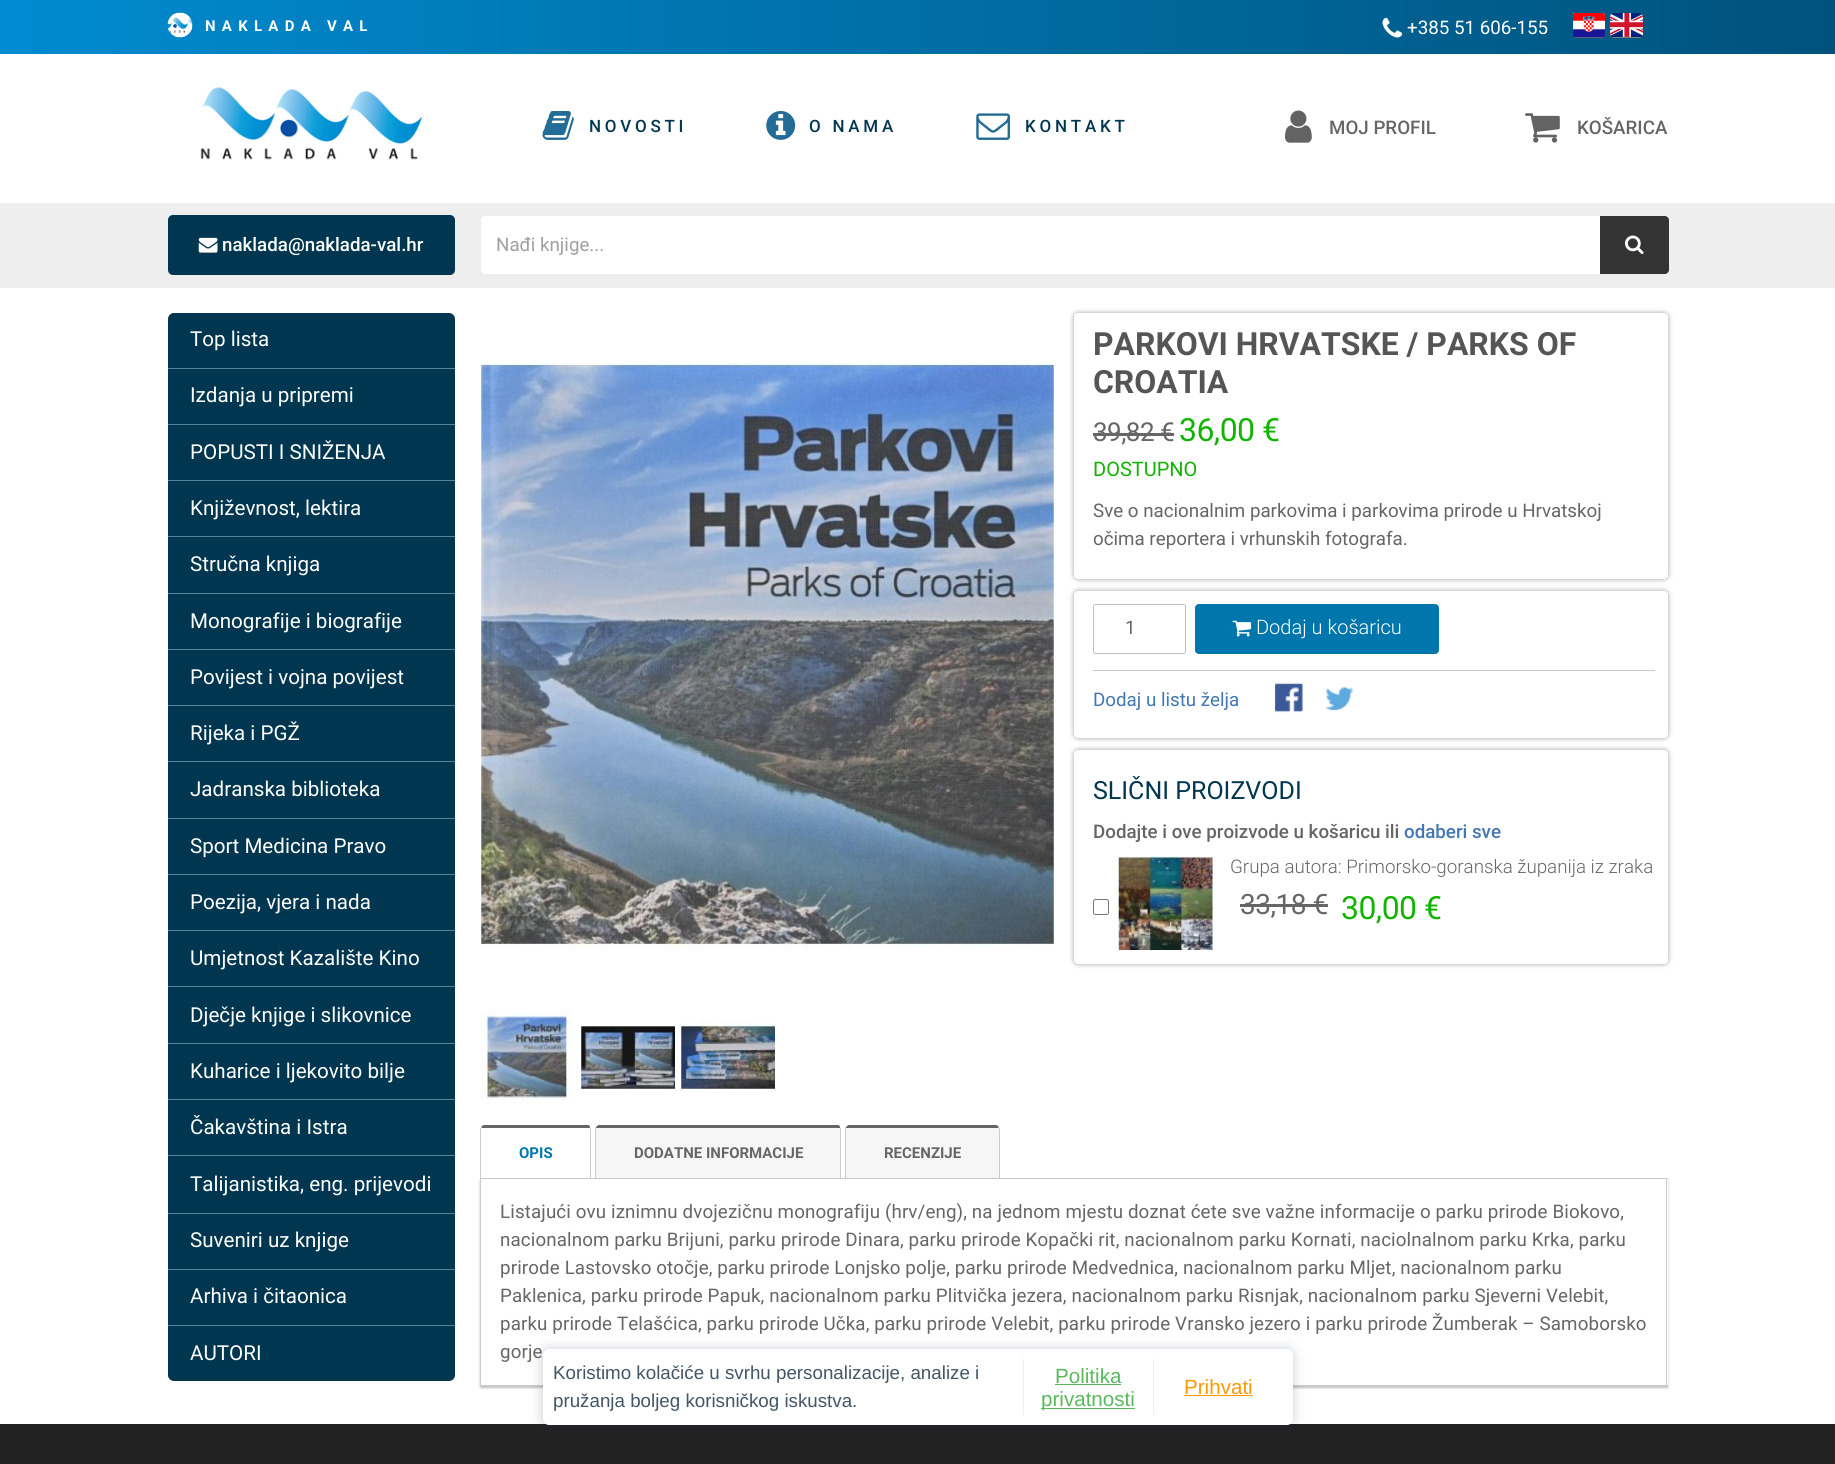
#include <cairo.h>
#include <math.h>
#include <stddef.h>


static void spaced_text(cairo_t *cr, double x, double y, const char *s, double letter, double word) {
    cairo_move_to(cr, x, y);
    while (*s) {
        char ch[5] = {0};
        int n = 0;
        do ch[n++] = *s++; while ((*s & 0xC0) == 0x80);
        cairo_show_text(cr, ch);
        cairo_rel_move_to(cr, letter + word * (*ch == ' '), 0);
    }
}

static void round_rect(cairo_t *cr, double x, double y, double w, double h, double r) {
    cairo_new_sub_path(cr);
    cairo_arc(cr, x + w - r, y + h - r, r, 0, M_PI / 2);
    cairo_arc(cr, x + r, y + h - r, r, M_PI / 2, M_PI);
    cairo_arc(cr, x + r, y + r, r, M_PI, 1.5 * M_PI);
    cairo_arc(cr, x + w - r, y + r, r, 1.5 * M_PI, 2 * M_PI);
    cairo_close_path(cr);
}

static void shadow(cairo_t *cr, double x, double y, double w, double h, double r, double blur, double alpha) {
    cairo_push_group_with_content(cr, CAIRO_CONTENT_ALPHA);
    cairo_set_operator(cr, CAIRO_OPERATOR_SOURCE);
    for (int i = 15; i >= -15 && fmin(w, h) + blur * i / 3 > 0; i -= 2) {
        double e = blur * i / 6;
        cairo_set_source_rgba(cr, 0, 0, 0, alpha * erfc((i - 1) / 8.5) / 2);
        round_rect(cr, x - e, y - e, w + 2 * e, h + 2 * e, fmax(0, fmin(r + e + blur * .6, fmin(w, h) / 2 + e)));
        cairo_fill(cr);
    }
    cairo_pattern_t *soft = cairo_pop_group(cr);
    cairo_mask(cr, soft);
    cairo_pattern_destroy(soft);
}

static void picture(cairo_t *cr, const char *path, double x, double y, double w, double h) {
    cairo_surface_t *image = cairo_image_surface_create_from_png(path);
    cairo_save(cr);
    cairo_set_source_surface(cr, image, x, y);
    cairo_rectangle(cr, x, y, w, h);
    cairo_fill(cr);
    cairo_restore(cr);
    cairo_surface_destroy(image);
}

int main(void) {
    cairo_surface_t *surface = cairo_image_surface_create(CAIRO_FORMAT_RGB24, 1835, 1464);
    cairo_t *cr = cairo_create(surface);
    cairo_font_options_t *options = cairo_font_options_create();
    cairo_font_options_set_hint_metrics(options, CAIRO_HINT_METRICS_OFF);
    cairo_font_options_set_hint_style(options, CAIRO_HINT_STYLE_NONE);
    cairo_set_font_options(cr, options);
    cairo_set_miter_limit(cr, 4);
    cairo_pattern_t *gradient;
    cairo_set_source_rgb(cr, 1, 1, 1);
    cairo_paint(cr);
    gradient = cairo_pattern_create_linear(0, 27, 1835, 27);
    cairo_pattern_add_color_stop_rgba(gradient, 0, 0, 0.545, 0.816, 1);
    cairo_pattern_add_color_stop_rgba(gradient, 1, 0, 0.322, 0.486, 1);
    cairo_set_source(cr, gradient);
    cairo_pattern_destroy(gradient);
    cairo_rectangle(cr, 0, 0, 1835, 54);
    cairo_fill(cr);
    picture(cr, "img1.png", 167, 12, 26, 26);
    cairo_select_font_face(cr, "Roboto", CAIRO_FONT_SLANT_NORMAL, CAIRO_FONT_WEIGHT_BOLD);
    cairo_set_font_size(cr, 15);
    cairo_set_source_rgb(cr, 1, 1, 1);
    spaced_text(cr, 205, 31, "NAKLADA VAL", 6.25, 0);
    picture(cr, "img2.png", 1382, 17, 21, 21);
    cairo_select_font_face(cr, "Roboto", CAIRO_FONT_SLANT_NORMAL, CAIRO_FONT_WEIGHT_NORMAL);
    cairo_set_font_size(cr, 18.75);
    cairo_move_to(cr, 1407, 34);
    cairo_show_text(cr, "+385 51 606-155");
    cairo_set_source_rgb(cr, 0.502, 0.502, 0.502);
    round_rect(cr, 1573, 13, 32, 25, 4);
    cairo_fill(cr);
    picture(cr, "img3.png", 1573, 13, 32, 25);
    round_rect(cr, 1610, 13, 33, 25, 4);
    cairo_fill(cr);
    picture(cr, "img4.png", 1610, 13, 33, 24);
    picture(cr, "img5.png", 200, 87, 223, 73);
    picture(cr, "img6.png", 542, 111, 32, 29);
    cairo_select_font_face(cr, "Roboto Medium", CAIRO_FONT_SLANT_NORMAL, CAIRO_FONT_WEIGHT_NORMAL);
    cairo_set_font_size(cr, 17);
    cairo_set_source_rgb(cr, 0, 0.212, 0.31);
    spaced_text(cr, 589, 132, "NOVOSTI", 3.75, 0);
    picture(cr, "img7.png", 766, 111, 30, 29);
    spaced_text(cr, 809, 132, "O NAMA", 3.75, 0);
    picture(cr, "img8.png", 976, 113, 34, 27);
    spaced_text(cr, 1025, 132, "KONTAKT", 3.75, 0);
    picture(cr, "img9.png", 1285, 110, 27, 33);
    cairo_set_font_size(cr, 18.75);
    cairo_set_source_rgb(cr, 0.4, 0.4, 0.4);
    cairo_move_to(cr, 1329, 134);
    cairo_show_text(cr, "MOJ PROFIL");
    picture(cr, "img10.png", 1525, 113, 35, 30);
    cairo_move_to(cr, 1577, 134);
    cairo_show_text(cr, "KOŠARICA");
    cairo_set_source_rgb(cr, 0.933, 0.933, 0.933);
    cairo_rectangle(cr, 0, 203, 1835, 85);
    cairo_fill(cr);
    cairo_set_source_rgb(cr, 0, 0.212, 0.31);
    round_rect(cr, 168, 215, 287, 60, 5);
    cairo_fill(cr);
    picture(cr, "img11.png", 198, 237, 20, 16);
    cairo_set_source_rgb(cr, 1, 1, 1);
    cairo_move_to(cr, 222, 251);
    cairo_show_text(cr, "naklada@naklada-val.hr");
    round_rect(cr, 481, 216, 1188, 58, 4);
    cairo_fill(cr);
    cairo_select_font_face(cr, "Roboto", CAIRO_FONT_SLANT_NORMAL, CAIRO_FONT_WEIGHT_NORMAL);
    cairo_set_source_rgb(cr, 0.627, 0.627, 0.627);
    cairo_move_to(cr, 496, 251);
    cairo_show_text(cr, "Nađi knjige...");
    cairo_set_source_rgb(cr, 0.2, 0.2, 0.2);
    cairo_new_path(cr);
    cairo_move_to(cr, 1600, 216);
    cairo_line_to(cr, 1665, 216);
    cairo_curve_to(cr, 1667, 216, 1669, 218, 1669, 220);
    cairo_line_to(cr, 1669, 270);
    cairo_curve_to(cr, 1669, 272, 1667, 274, 1665, 274);
    cairo_line_to(cr, 1600, 274);
    cairo_close_path(cr);
    cairo_fill(cr);
    picture(cr, "img12.png", 1625, 235, 19, 20);
    cairo_set_source_rgb(cr, 0, 0.212, 0.31);
    round_rect(cr, 168, 313, 287, 1068, 6);
    cairo_fill(cr);
    cairo_set_source_rgb(cr, 0.341, 0.518, 0.6);
    cairo_rectangle(cr, 168, 368, 287, 1);
    cairo_fill(cr);
    cairo_set_font_size(cr, 20.6);
    cairo_set_source_rgb(cr, 1, 1, 1);
    cairo_move_to(cr, 190, 346);
    cairo_show_text(cr, "Top lista");
    cairo_set_source_rgb(cr, 0.341, 0.518, 0.6);
    cairo_rectangle(cr, 168, 424, 287, 1);
    cairo_fill(cr);
    cairo_set_source_rgb(cr, 1, 1, 1);
    cairo_move_to(cr, 190, 402);
    cairo_show_text(cr, "Izdanja u pripremi");
    cairo_set_source_rgb(cr, 0.341, 0.518, 0.6);
    cairo_rectangle(cr, 168, 480, 287, 1);
    cairo_fill(cr);
    cairo_set_source_rgb(cr, 1, 1, 1);
    cairo_move_to(cr, 190, 459);
    cairo_show_text(cr, "POPUSTI I SNIŽENJA");
    cairo_set_source_rgb(cr, 0.341, 0.518, 0.6);
    cairo_rectangle(cr, 168, 536, 287, 1);
    cairo_fill(cr);
    cairo_set_source_rgb(cr, 1, 1, 1);
    cairo_move_to(cr, 190, 515);
    cairo_show_text(cr, "Književnost, lektira");
    cairo_set_source_rgb(cr, 0.341, 0.518, 0.6);
    cairo_rectangle(cr, 168, 593, 287, 1);
    cairo_fill(cr);
    cairo_set_source_rgb(cr, 1, 1, 1);
    cairo_move_to(cr, 190, 571);
    cairo_show_text(cr, "Stručna knjiga");
    cairo_set_source_rgb(cr, 0.341, 0.518, 0.6);
    cairo_rectangle(cr, 168, 649, 287, 1);
    cairo_fill(cr);
    cairo_set_source_rgb(cr, 1, 1, 1);
    cairo_move_to(cr, 190, 628);
    cairo_show_text(cr, "Monografije i biografije");
    cairo_set_source_rgb(cr, 0.341, 0.518, 0.6);
    cairo_rectangle(cr, 168, 705, 287, 1);
    cairo_fill(cr);
    cairo_set_source_rgb(cr, 1, 1, 1);
    cairo_move_to(cr, 190, 684);
    cairo_show_text(cr, "Povijest i vojna povijest");
    cairo_set_source_rgb(cr, 0.341, 0.518, 0.6);
    cairo_rectangle(cr, 168, 761, 287, 1);
    cairo_fill(cr);
    cairo_set_source_rgb(cr, 1, 1, 1);
    cairo_move_to(cr, 190, 740);
    cairo_show_text(cr, "Rijeka i PGŽ");
    cairo_set_source_rgb(cr, 0.341, 0.518, 0.6);
    cairo_rectangle(cr, 168, 818, 287, 1);
    cairo_fill(cr);
    cairo_set_source_rgb(cr, 1, 1, 1);
    cairo_move_to(cr, 190, 796);
    cairo_show_text(cr, "Jadranska biblioteka");
    cairo_set_source_rgb(cr, 0.341, 0.518, 0.6);
    cairo_rectangle(cr, 168, 874, 287, 1);
    cairo_fill(cr);
    cairo_set_source_rgb(cr, 1, 1, 1);
    cairo_move_to(cr, 190, 853);
    cairo_show_text(cr, "Sport Medicina Pravo");
    cairo_set_source_rgb(cr, 0.341, 0.518, 0.6);
    cairo_rectangle(cr, 168, 930, 287, 1);
    cairo_fill(cr);
    cairo_set_source_rgb(cr, 1, 1, 1);
    cairo_move_to(cr, 190, 909);
    cairo_show_text(cr, "Poezija, vjera i nada");
    cairo_set_source_rgb(cr, 0.341, 0.518, 0.6);
    cairo_rectangle(cr, 168, 986, 287, 1);
    cairo_fill(cr);
    cairo_set_source_rgb(cr, 1, 1, 1);
    cairo_move_to(cr, 190, 965);
    cairo_show_text(cr, "Umjetnost Kazalište Kino");
    cairo_set_source_rgb(cr, 0.341, 0.518, 0.6);
    cairo_rectangle(cr, 168, 1043, 287, 1);
    cairo_fill(cr);
    cairo_set_source_rgb(cr, 1, 1, 1);
    cairo_move_to(cr, 190, 1022);
    cairo_show_text(cr, "Dječje knjige i slikovnice");
    cairo_set_source_rgb(cr, 0.341, 0.518, 0.6);
    cairo_rectangle(cr, 168, 1099, 287, 1);
    cairo_fill(cr);
    cairo_set_source_rgb(cr, 1, 1, 1);
    cairo_move_to(cr, 190, 1078);
    cairo_show_text(cr, "Kuharice i ljekovito bilje");
    cairo_set_source_rgb(cr, 0.341, 0.518, 0.6);
    cairo_rectangle(cr, 168, 1155, 287, 1);
    cairo_fill(cr);
    cairo_set_source_rgb(cr, 1, 1, 1);
    cairo_move_to(cr, 190, 1134);
    cairo_show_text(cr, "Čakavština i Istra");
    cairo_set_source_rgb(cr, 0.341, 0.518, 0.6);
    cairo_rectangle(cr, 168, 1213, 287, 1);
    cairo_fill(cr);
    cairo_set_source_rgb(cr, 1, 1, 1);
    cairo_move_to(cr, 190, 1191);
    cairo_show_text(cr, "Talijanistika, eng. prijevodi");
    cairo_set_source_rgb(cr, 0.341, 0.518, 0.6);
    cairo_rectangle(cr, 168, 1269, 287, 1);
    cairo_fill(cr);
    cairo_set_source_rgb(cr, 1, 1, 1);
    cairo_move_to(cr, 190, 1247);
    cairo_show_text(cr, "Suveniri uz knjige");
    cairo_set_source_rgb(cr, 0.341, 0.518, 0.6);
    cairo_rectangle(cr, 168, 1325, 287, 1);
    cairo_fill(cr);
    cairo_set_source_rgb(cr, 1, 1, 1);
    cairo_move_to(cr, 190, 1303);
    cairo_show_text(cr, "Arhiva i čitaonica");
    cairo_move_to(cr, 190, 1360);
    cairo_show_text(cr, "AUTORI");
    picture(cr, "img13.png", 481, 362, 573, 587);
    picture(cr, "img14.png", 480, 1010, 92, 90);
    picture(cr, "img15.png", 581, 1026, 94, 64);
    picture(cr, "img16.png", 681, 1020, 94, 70);
    cairo_save(cr);
    cairo_set_fill_rule(cr, CAIRO_FILL_RULE_EVEN_ODD);
    cairo_new_path(cr);
    cairo_move_to(cr, 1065, 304);
    cairo_line_to(cr, 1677, 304);
    cairo_line_to(cr, 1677, 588);
    cairo_line_to(cr, 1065, 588);
    cairo_close_path(cr);
    cairo_move_to(cr, 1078, 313);
    cairo_line_to(cr, 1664, 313);
    cairo_curve_to(cr, 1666, 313, 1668, 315, 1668, 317);
    cairo_line_to(cr, 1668, 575);
    cairo_curve_to(cr, 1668, 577, 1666, 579, 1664, 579);
    cairo_line_to(cr, 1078, 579);
    cairo_curve_to(cr, 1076, 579, 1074, 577, 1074, 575);
    cairo_line_to(cr, 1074, 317);
    cairo_curve_to(cr, 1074, 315, 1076, 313, 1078, 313);
    cairo_close_path(cr);
    cairo_clip(cr);
    cairo_set_source_rgb(cr, 0, 0, 0);
    shadow(cr, 1074, 313, 594, 266, 4, 2.5, 0.4);
    cairo_restore(cr);
    cairo_select_font_face(cr, "Roboto", CAIRO_FONT_SLANT_NORMAL, CAIRO_FONT_WEIGHT_BOLD);
    cairo_set_font_size(cr, 31.9);
    cairo_set_source_rgb(cr, 0.333, 0.333, 0.333);
    cairo_move_to(cr, 1093, 355);
    cairo_show_text(cr, "PARKOVI HRVATSKE / PARKS OF");
    cairo_move_to(cr, 1093, 393);
    cairo_show_text(cr, "CROATIA");
    cairo_select_font_face(cr, "Roboto", CAIRO_FONT_SLANT_NORMAL, CAIRO_FONT_WEIGHT_NORMAL);
    cairo_set_font_size(cr, 26);
    cairo_set_source_rgb(cr, 0.4, 0.4, 0.4);
    spaced_text(cr, 1093, 441, "39,82 €", -0.5, 0);
    cairo_rectangle(cr, 1093, 433, 81, 3);
    cairo_fill(cr);
    cairo_set_font_size(cr, 31.9);
    cairo_set_source_rgb(cr, 0.067, 0.706, 0);
    spaced_text(cr, 1179, 441, "36,00 €", -0.5, 0);
    cairo_set_font_size(cr, 20);
    cairo_move_to(cr, 1093, 476);
    cairo_show_text(cr, "DOSTUPNO");
    cairo_set_font_size(cr, 18.75);
    cairo_set_source_rgb(cr, 0.4, 0.4, 0.4);
    cairo_move_to(cr, 1093, 517);
    cairo_show_text(cr, "Sve o nacionalnim parkovima i parkovima prirode u Hrvatskoj");
    cairo_move_to(cr, 1093, 545);
    cairo_show_text(cr, "očima reportera i vrhunskih fotografa.");
    cairo_save(cr);
    cairo_set_fill_rule(cr, CAIRO_FILL_RULE_EVEN_ODD);
    cairo_new_path(cr);
    cairo_move_to(cr, 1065, 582);
    cairo_line_to(cr, 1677, 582);
    cairo_line_to(cr, 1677, 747);
    cairo_line_to(cr, 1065, 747);
    cairo_close_path(cr);
    cairo_move_to(cr, 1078, 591);
    cairo_line_to(cr, 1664, 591);
    cairo_curve_to(cr, 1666, 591, 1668, 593, 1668, 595);
    cairo_line_to(cr, 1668, 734);
    cairo_curve_to(cr, 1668, 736, 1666, 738, 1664, 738);
    cairo_line_to(cr, 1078, 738);
    cairo_curve_to(cr, 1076, 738, 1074, 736, 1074, 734);
    cairo_line_to(cr, 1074, 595);
    cairo_curve_to(cr, 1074, 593, 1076, 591, 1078, 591);
    cairo_close_path(cr);
    cairo_clip(cr);
    cairo_set_source_rgb(cr, 0, 0, 0);
    shadow(cr, 1074, 591, 594, 147, 4, 2.5, 0.4);
    cairo_restore(cr);
    cairo_set_source_rgb(cr, 0.8, 0.8, 0.8);
    cairo_rectangle(cr, 1093, 670, 562, 1);
    cairo_fill(cr);
    round_rect(cr, 1093.5, 604.5, 92, 49, 2);
    cairo_set_source_rgb(cr, 0.753, 0.753, 0.753);
    cairo_set_line_width(cr, 1);
    cairo_stroke(cr);
    cairo_set_source_rgb(cr, 0.4, 0.4, 0.4);
    cairo_move_to(cr, 1125, 634);
    cairo_show_text(cr, "1");
    cairo_set_source_rgb(cr, 0, 0.467, 0.675);
    round_rect(cr, 1195, 604, 244, 50, 4);
    cairo_fill(cr);
    picture(cr, "img17.png", 1232, 620, 20, 17);
    cairo_select_font_face(cr, "Roboto Light", CAIRO_FONT_SLANT_NORMAL, CAIRO_FONT_WEIGHT_NORMAL);
    cairo_set_font_size(cr, 20);
    cairo_set_source_rgb(cr, 1, 1, 1);
    cairo_move_to(cr, 1256, 634);
    cairo_show_text(cr, "Dodaj u košaricu");
    cairo_select_font_face(cr, "Roboto", CAIRO_FONT_SLANT_NORMAL, CAIRO_FONT_WEIGHT_NORMAL);
    cairo_set_font_size(cr, 18.75);
    cairo_set_source_rgb(cr, 0.259, 0.467, 0.706);
    cairo_move_to(cr, 1093, 706);
    cairo_show_text(cr, "Dodaj u listu želja");
    picture(cr, "img18.png", 1275, 683, 29, 30);
    picture(cr, "img19.png", 1325, 686, 29, 25);
    cairo_save(cr);
    cairo_set_fill_rule(cr, CAIRO_FILL_RULE_EVEN_ODD);
    cairo_new_path(cr);
    cairo_move_to(cr, 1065, 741);
    cairo_line_to(cr, 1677, 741);
    cairo_line_to(cr, 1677, 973);
    cairo_line_to(cr, 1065, 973);
    cairo_close_path(cr);
    cairo_move_to(cr, 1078, 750);
    cairo_line_to(cr, 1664, 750);
    cairo_curve_to(cr, 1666, 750, 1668, 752, 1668, 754);
    cairo_line_to(cr, 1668, 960);
    cairo_curve_to(cr, 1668, 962, 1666, 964, 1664, 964);
    cairo_line_to(cr, 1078, 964);
    cairo_curve_to(cr, 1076, 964, 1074, 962, 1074, 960);
    cairo_line_to(cr, 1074, 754);
    cairo_curve_to(cr, 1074, 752, 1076, 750, 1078, 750);
    cairo_close_path(cr);
    cairo_clip(cr);
    cairo_set_source_rgb(cr, 0, 0, 0);
    shadow(cr, 1074, 750, 594, 214, 4, 2.5, 0.4);
    cairo_restore(cr);
    cairo_set_font_size(cr, 25);
    cairo_set_source_rgb(cr, 0, 0.212, 0.31);
    cairo_move_to(cr, 1093, 799);
    cairo_show_text(cr, "SLIČNI PROIZVODI");
    cairo_select_font_face(cr, "Roboto Medium", CAIRO_FONT_SLANT_NORMAL, CAIRO_FONT_WEIGHT_NORMAL);
    cairo_set_font_size(cr, 18.75);
    cairo_set_source_rgb(cr, 0.4, 0.4, 0.4);
    cairo_move_to(cr, 1093, 838);
    cairo_show_text(cr, "Dodajte i ove proizvode u košaricu ili");
    cairo_set_source_rgb(cr, 0.259, 0.467, 0.706);
    cairo_move_to(cr, 1404, 838);
    cairo_show_text(cr, "odaberi sve");
    round_rect(cr, 1093.5, 899.5, 15, 15, 2);
    cairo_set_source_rgb(cr, 0.463, 0.463, 0.463);
    cairo_stroke(cr);
    picture(cr, "img20.png", 1118, 856, 95, 94);
    cairo_select_font_face(cr, "Roboto Light", CAIRO_FONT_SLANT_NORMAL, CAIRO_FONT_WEIGHT_NORMAL);
    cairo_set_source_rgb(cr, 0.4, 0.4, 0.4);
    cairo_move_to(cr, 1230, 873);
    cairo_show_text(cr, "Grupa autora: Primorsko-goranska županija iz zraka");
    cairo_select_font_face(cr, "Roboto", CAIRO_FONT_SLANT_NORMAL, CAIRO_FONT_WEIGHT_NORMAL);
    cairo_set_font_size(cr, 28);
    spaced_text(cr, 1240, 914, "33,18 €", -0.5, 0);
    cairo_rectangle(cr, 1240, 904, 88, 3);
    cairo_fill(cr);
    cairo_set_font_size(cr, 31.9);
    cairo_set_source_rgb(cr, 0.067, 0.706, 0);
    spaced_text(cr, 1341, 919, "30,00 €", -0.5, 0);
    cairo_set_source_rgb(cr, 0.8, 0.8, 0.8);
    cairo_rectangle(cr, 480, 1178, 1188, 1);
    cairo_fill(cr);
    cairo_set_source_rgb(cr, 0.4, 0.4, 0.4);
    cairo_new_path(cr);
    cairo_move_to(cr, 484, 1125);
    cairo_curve_to(cr, 483, 1125, 482, 1126, 481, 1127);
    cairo_line_to(cr, 482, 1128);
    cairo_line_to(cr, 590, 1128);
    cairo_line_to(cr, 590, 1127);
    cairo_curve_to(cr, 590, 1126, 589, 1125, 588, 1125);
    cairo_close_path(cr);
    cairo_fill(cr);
    cairo_save(cr);
    cairo_set_fill_rule(cr, CAIRO_FILL_RULE_EVEN_ODD);
    cairo_new_path(cr);
    cairo_move_to(cr, 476, 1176);
    cairo_line_to(cr, 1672, 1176);
    cairo_line_to(cr, 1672, 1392);
    cairo_line_to(cr, 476, 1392);
    cairo_close_path(cr);
    cairo_move_to(cr, 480, 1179);
    cairo_line_to(cr, 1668, 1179);
    cairo_line_to(cr, 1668, 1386);
    cairo_line_to(cr, 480, 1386);
    cairo_close_path(cr);
    cairo_clip(cr);
    cairo_set_source_rgb(cr, 0, 0, 0);
    shadow(cr, 480, 1180, 1188, 208, 0, 1, 0.24);
    cairo_restore(cr);
    cairo_set_source_rgb(cr, 0.8, 0.8, 0.8);
    cairo_new_path(cr);
    cairo_move_to(cr, 590, 1178);
    cairo_line_to(cr, 590, 1129);
    cairo_line_to(cr, 590, 1128);
    cairo_line_to(cr, 590, 1127);
    cairo_line_to(cr, 591, 1129);
    cairo_line_to(cr, 591, 1178);
    cairo_close_path(cr);
    cairo_fill(cr);
    cairo_new_path(cr);
    cairo_move_to(cr, 480, 1178);
    cairo_line_to(cr, 481, 1178);
    cairo_line_to(cr, 481, 1128);
    cairo_line_to(cr, 482, 1128);
    cairo_line_to(cr, 481, 1127);
    cairo_line_to(cr, 480, 1129);
    cairo_close_path(cr);
    cairo_fill(cr);
    cairo_select_font_face(cr, "Roboto", CAIRO_FONT_SLANT_NORMAL, CAIRO_FONT_WEIGHT_BOLD);
    cairo_set_font_size(cr, 15);
    cairo_set_source_rgb(cr, 0, 0.467, 0.675);
    cairo_move_to(cr, 519, 1158);
    cairo_show_text(cr, "OPIS");
    cairo_set_source_rgb(cr, 0.961, 0.961, 0.961);
    cairo_new_path(cr);
    cairo_move_to(cr, 599, 1125);
    cairo_line_to(cr, 837, 1125);
    cairo_curve_to(cr, 839, 1125, 841, 1127, 841, 1129);
    cairo_line_to(cr, 841, 1178);
    cairo_line_to(cr, 595, 1178);
    cairo_line_to(cr, 595, 1129);
    cairo_curve_to(cr, 595, 1127, 597, 1125, 599, 1125);
    cairo_close_path(cr);
    cairo_fill(cr);
    cairo_set_source_rgb(cr, 0.4, 0.4, 0.4);
    cairo_new_path(cr);
    cairo_move_to(cr, 599, 1125);
    cairo_curve_to(cr, 598, 1125, 597, 1126, 596, 1127);
    cairo_line_to(cr, 596, 1128);
    cairo_line_to(cr, 840, 1128);
    cairo_line_to(cr, 840, 1127);
    cairo_curve_to(cr, 840, 1126, 839, 1125, 838, 1125);
    cairo_close_path(cr);
    cairo_fill(cr);
    cairo_set_source_rgb(cr, 0.8, 0.8, 0.8);
    cairo_new_path(cr);
    cairo_move_to(cr, 840, 1178);
    cairo_line_to(cr, 840, 1129);
    cairo_line_to(cr, 840, 1128);
    cairo_line_to(cr, 840, 1127);
    cairo_line_to(cr, 841, 1129);
    cairo_line_to(cr, 841, 1178);
    cairo_close_path(cr);
    cairo_fill(cr);
    cairo_new_path(cr);
    cairo_move_to(cr, 595, 1178);
    cairo_line_to(cr, 596, 1178);
    cairo_line_to(cr, 596, 1128);
    cairo_line_to(cr, 596, 1127);
    cairo_line_to(cr, 595, 1129);
    cairo_close_path(cr);
    cairo_fill(cr);
    cairo_set_source_rgb(cr, 0.4, 0.4, 0.4);
    cairo_move_to(cr, 634, 1158);
    cairo_show_text(cr, "DODATNE INFORMACIJE");
    cairo_set_source_rgb(cr, 0.961, 0.961, 0.961);
    cairo_new_path(cr);
    cairo_move_to(cr, 849, 1125);
    cairo_line_to(cr, 996, 1125);
    cairo_curve_to(cr, 998, 1125, 1000, 1127, 1000, 1129);
    cairo_line_to(cr, 1000, 1178);
    cairo_line_to(cr, 845, 1178);
    cairo_line_to(cr, 845, 1129);
    cairo_curve_to(cr, 845, 1127, 847, 1125, 849, 1125);
    cairo_close_path(cr);
    cairo_fill(cr);
    cairo_set_source_rgb(cr, 0.4, 0.4, 0.4);
    cairo_new_path(cr);
    cairo_move_to(cr, 849, 1125);
    cairo_curve_to(cr, 848, 1125, 847, 1126, 846, 1127);
    cairo_line_to(cr, 846, 1128);
    cairo_line_to(cr, 998, 1128);
    cairo_line_to(cr, 999, 1127);
    cairo_curve_to(cr, 998, 1126, 997, 1125, 996, 1125);
    cairo_close_path(cr);
    cairo_fill(cr);
    cairo_set_source_rgb(cr, 0.8, 0.8, 0.8);
    cairo_new_path(cr);
    cairo_move_to(cr, 999, 1178);
    cairo_line_to(cr, 999, 1129);
    cairo_line_to(cr, 998, 1128);
    cairo_line_to(cr, 999, 1127);
    cairo_line_to(cr, 1000, 1129);
    cairo_line_to(cr, 1000, 1178);
    cairo_close_path(cr);
    cairo_fill(cr);
    cairo_new_path(cr);
    cairo_move_to(cr, 845, 1178);
    cairo_line_to(cr, 846, 1178);
    cairo_line_to(cr, 846, 1128);
    cairo_line_to(cr, 846, 1127);
    cairo_line_to(cr, 845, 1129);
    cairo_close_path(cr);
    cairo_fill(cr);
    cairo_set_source_rgb(cr, 0.4, 0.4, 0.4);
    cairo_move_to(cr, 884, 1158);
    cairo_show_text(cr, "RECENZIJE");
    cairo_set_source_rgb(cr, 0.8, 0.8, 0.8);
    cairo_rectangle(cr, 1666, 1179, 1, 207);
    cairo_fill(cr);
    cairo_rectangle(cr, 480, 1385, 1188, 1);
    cairo_fill(cr);
    cairo_rectangle(cr, 480, 1179, 1, 207);
    cairo_fill(cr);
    cairo_select_font_face(cr, "Roboto", CAIRO_FONT_SLANT_NORMAL, CAIRO_FONT_WEIGHT_NORMAL);
    cairo_set_font_size(cr, 18.75);
    cairo_set_source_rgb(cr, 0.4, 0.4, 0.4);
    spaced_text(cr, 500, 1218, "Listajući ovu iznimnu dvojezičnu monografiju (hrv/eng), na jednom mjestu doznat ćete sve važne informacije o parku prirode Biokovo,", 0.12, 0);
    spaced_text(cr, 500, 1246, "nacionalnom parku Brijuni, parku prirode Dinara, parku prirode Kopački rit, nacionalnom parku Kornati, naciolnalnom parku Krka, parku", 0.12, 0);
    spaced_text(cr, 500, 1274, "prirode Lastovsko otočje, parku prirode Lonjsko polje, parku prirode Medvednica, nacionalnom parku Mljet, nacionalnom parku", 0.12, 0);
    spaced_text(cr, 500, 1302, "Paklenica, parku prirode Papuk, nacionalnom parku Plitvička jezera, nacionalnom parku Risnjak, nacionalnom parku Sjeverni Velebit,", 0.12, 0);
    spaced_text(cr, 500, 1330, "parku prirode Telašćica, parku prirode Učka, parku prirode Velebit, parku prirode Vransko jezero i parku prirode Žumberak – Samoborsko", 0.12, 0);
    spaced_text(cr, 500, 1358, "gorje", 0.12, 0);
    cairo_set_source_rgb(cr, 0.133, 0.133, 0.133);
    cairo_rectangle(cr, 0, 1424, 1835, 40);
    cairo_fill(cr);
    cairo_set_source_rgb(cr, 0.078, 0.157, 0.314);
    shadow(cr, 541, 1348, 753, 78, 8, 5.5, 0.2);
    cairo_set_source_rgb(cr, 1, 1, 1);
    round_rect(cr, 543, 1349, 750, 76, 6);
    cairo_fill(cr);
    cairo_select_font_face(cr, "Liberation Sans", CAIRO_FONT_SLANT_NORMAL, CAIRO_FONT_WEIGHT_NORMAL);
    cairo_set_source_rgb(cr, 0.267, 0.333, 0.4);
    cairo_move_to(cr, 553, 1379);
    cairo_show_text(cr, "Koristimo kolačiće u svrhu personalizacije, analize i");
    cairo_move_to(cr, 553, 1407);
    cairo_show_text(cr, "pružanja boljeg korisničkog iskustva.");
    cairo_set_source_rgb(cr, 0.933, 0.933, 0.933);
    cairo_rectangle(cr, 1023, 1359, 1, 56);
    cairo_fill(cr);
    cairo_set_font_size(cr, 20.6);
    cairo_set_source_rgb(cr, 0.361, 0.722, 0.361);
    cairo_move_to(cr, 1055, 1383);
    cairo_show_text(cr, "Politika");
    cairo_rectangle(cr, 1055, 1384, 66, 1);
    cairo_fill(cr);
    cairo_rectangle(cr, 1041, 1408, 94, 1);
    cairo_fill(cr);
    cairo_move_to(cr, 1041, 1406);
    cairo_show_text(cr, "privatnosti");
    cairo_set_source_rgb(cr, 0.933, 0.933, 0.933);
    cairo_rectangle(cr, 1153, 1359, 1, 56);
    cairo_fill(cr);
    cairo_set_source_rgb(cr, 1, 0.6, 0);
    cairo_move_to(cr, 1184, 1394);
    cairo_show_text(cr, "Prihvati");
    cairo_rectangle(cr, 1184, 1395, 69, 1);
    cairo_fill(cr);
    cairo_surface_write_to_png(surface, "page.png");
    cairo_font_options_destroy(options);
    cairo_destroy(cr);
    cairo_surface_destroy(surface);
    return 0;
}
